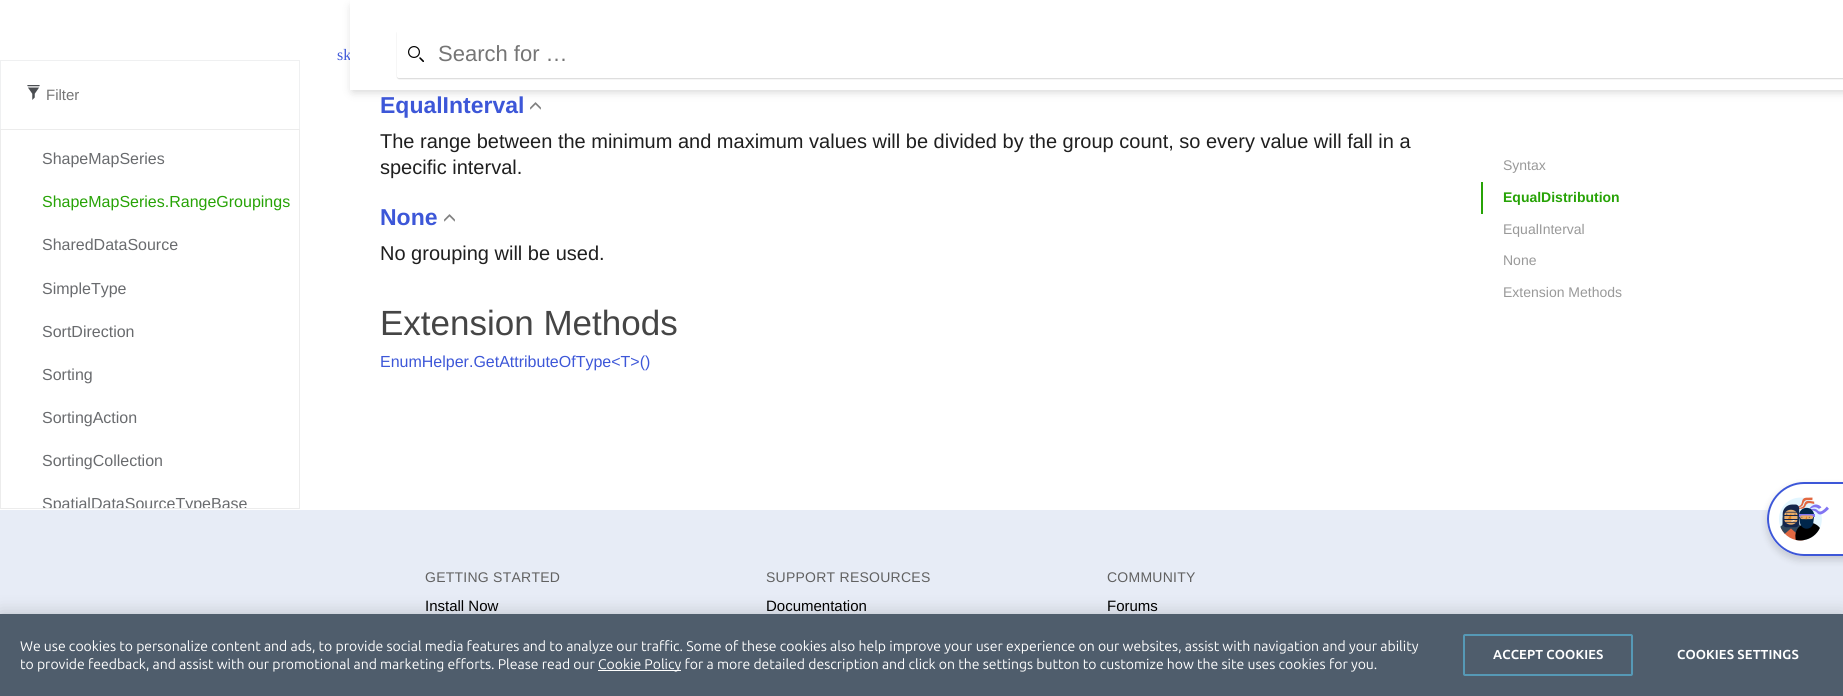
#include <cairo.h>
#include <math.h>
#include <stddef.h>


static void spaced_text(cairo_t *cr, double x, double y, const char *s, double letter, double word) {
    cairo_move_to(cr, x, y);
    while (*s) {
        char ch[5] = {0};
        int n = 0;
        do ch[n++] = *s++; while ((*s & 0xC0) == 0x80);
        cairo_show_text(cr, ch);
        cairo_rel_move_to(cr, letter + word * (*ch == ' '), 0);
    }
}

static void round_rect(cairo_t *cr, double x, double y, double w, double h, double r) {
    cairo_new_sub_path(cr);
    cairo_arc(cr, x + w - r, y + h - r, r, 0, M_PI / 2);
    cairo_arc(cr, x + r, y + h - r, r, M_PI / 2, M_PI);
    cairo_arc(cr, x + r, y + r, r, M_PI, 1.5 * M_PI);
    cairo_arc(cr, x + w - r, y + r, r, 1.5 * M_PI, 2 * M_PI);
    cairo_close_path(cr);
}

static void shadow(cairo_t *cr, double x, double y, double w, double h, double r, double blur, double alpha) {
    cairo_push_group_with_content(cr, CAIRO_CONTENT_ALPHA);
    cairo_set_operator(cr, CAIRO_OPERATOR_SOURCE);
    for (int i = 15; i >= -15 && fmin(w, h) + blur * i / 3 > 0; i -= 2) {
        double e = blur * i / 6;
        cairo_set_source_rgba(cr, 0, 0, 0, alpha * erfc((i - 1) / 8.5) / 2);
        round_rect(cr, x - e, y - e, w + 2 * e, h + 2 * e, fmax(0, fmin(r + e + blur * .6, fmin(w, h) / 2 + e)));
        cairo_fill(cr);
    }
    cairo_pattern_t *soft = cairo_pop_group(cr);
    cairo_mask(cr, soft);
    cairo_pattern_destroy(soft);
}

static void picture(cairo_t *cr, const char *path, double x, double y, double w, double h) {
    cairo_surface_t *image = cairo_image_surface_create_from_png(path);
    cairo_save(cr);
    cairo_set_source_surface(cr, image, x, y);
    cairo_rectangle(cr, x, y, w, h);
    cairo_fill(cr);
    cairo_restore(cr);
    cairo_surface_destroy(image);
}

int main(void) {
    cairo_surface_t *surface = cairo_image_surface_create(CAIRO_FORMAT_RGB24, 1843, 696);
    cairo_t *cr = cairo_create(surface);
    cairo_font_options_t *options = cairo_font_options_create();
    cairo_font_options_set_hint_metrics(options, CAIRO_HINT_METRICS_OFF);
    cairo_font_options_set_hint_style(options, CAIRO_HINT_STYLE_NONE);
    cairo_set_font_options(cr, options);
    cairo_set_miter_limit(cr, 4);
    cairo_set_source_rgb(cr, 1, 1, 1);
    cairo_paint(cr);
    cairo_set_source_rgb(cr, 0.937, 0.941, 0.945);
    cairo_rectangle(cr, 0, 60, 300, 1);
    cairo_fill(cr);
    cairo_rectangle(cr, 299, 60, 1, 69);
    cairo_fill(cr);
    cairo_rectangle(cr, 0, 60, 1, 69);
    cairo_fill(cr);
    picture(cr, "img1.png", 27, 85, 13, 15);
    cairo_select_font_face(cr, "Liberation Sans", CAIRO_FONT_SLANT_NORMAL, CAIRO_FONT_WEIGHT_NORMAL);
    cairo_set_font_size(cr, 15);
    cairo_set_source_rgb(cr, 0.459, 0.459, 0.459);
    cairo_move_to(cr, 46, 100);
    cairo_show_text(cr, "Filter");
    cairo_rectangle(cr, 0.5, 129.5, 299, 379);
    cairo_set_source_rgb(cr, 0.925, 0.925, 0.925);
    cairo_set_line_width(cr, 1);
    cairo_stroke(cr);
    cairo_set_font_size(cr, 16);
    cairo_set_source_rgb(cr, 0.412, 0.42, 0.431);
    cairo_move_to(cr, 42, 164);
    cairo_show_text(cr, "ShapeMapSeries");
    cairo_set_source_rgb(cr, 0.153, 0.639, 0.024);
    cairo_move_to(cr, 42, 207);
    cairo_show_text(cr, "ShapeMapSeries.RangeGroupings");
    cairo_set_source_rgb(cr, 0.412, 0.42, 0.431);
    cairo_move_to(cr, 42, 250);
    cairo_show_text(cr, "SharedDataSource");
    cairo_move_to(cr, 42, 294);
    cairo_show_text(cr, "SimpleType");
    cairo_move_to(cr, 42, 337);
    cairo_show_text(cr, "SortDirection");
    cairo_move_to(cr, 42, 380);
    cairo_show_text(cr, "Sorting");
    cairo_move_to(cr, 42, 423);
    cairo_show_text(cr, "SortingAction");
    cairo_move_to(cr, 42, 466);
    cairo_show_text(cr, "SortingCollection");
    cairo_save(cr);
    cairo_rectangle(cr, 1, 130, 298, 378);
    cairo_clip(cr);
    cairo_move_to(cr, 42, 509);
    cairo_show_text(cr, "SpatialDataSourceTypeBase");
    cairo_restore(cr);
    picture(cr, "img3.png", 530, 102, 11, 8);
    cairo_set_source_rgb(cr, 0, 0, 0);
    shadow(cr, 353, 7, 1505, 84, 0, 5, 0.2);
    cairo_select_font_face(cr, "Liberation Serif", CAIRO_FONT_SLANT_NORMAL, CAIRO_FONT_WEIGHT_NORMAL);
    cairo_set_source_rgb(cr, 0.239, 0.341, 0.847);
    cairo_move_to(cr, 337, 60);
    cairo_show_text(cr, "sk");
    cairo_set_source_rgb(cr, 1, 1, 1);
    cairo_rectangle(cr, 350, 0, 1493, 90);
    cairo_fill(cr);
    cairo_save(cr);
    cairo_set_fill_rule(cr, CAIRO_FILL_RULE_EVEN_ODD);
    cairo_new_path(cr);
    cairo_move_to(cr, 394, 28);
    cairo_line_to(cr, 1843, 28);
    cairo_line_to(cr, 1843, 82);
    cairo_line_to(cr, 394, 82);
    cairo_close_path(cr);
    cairo_move_to(cr, 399, 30);
    cairo_line_to(cr, 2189, 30);
    cairo_curve_to(cr, 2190, 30, 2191, 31, 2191, 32);
    cairo_line_to(cr, 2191, 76);
    cairo_curve_to(cr, 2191, 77, 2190, 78, 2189, 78);
    cairo_line_to(cr, 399, 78);
    cairo_curve_to(cr, 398, 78, 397, 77, 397, 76);
    cairo_line_to(cr, 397, 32);
    cairo_curve_to(cr, 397, 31, 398, 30, 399, 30);
    cairo_close_path(cr);
    cairo_clip(cr);
    cairo_set_source_rgb(cr, 0, 0, 0);
    shadow(cr, 397, 31, 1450, 48, 2, 0.5, 0.15);
    cairo_restore(cr);
    picture(cr, "img2.png", 408, 46, 16, 16);
    cairo_select_font_face(cr, "Liberation Sans", CAIRO_FONT_SLANT_NORMAL, CAIRO_FONT_WEIGHT_NORMAL);
    cairo_set_font_size(cr, 22);
    cairo_set_source_rgb(cr, 0.459, 0.459, 0.459);
    cairo_move_to(cr, 438, 61);
    cairo_show_text(cr, "Search for …");
    cairo_select_font_face(cr, "Liberation Sans", CAIRO_FONT_SLANT_NORMAL, CAIRO_FONT_WEIGHT_BOLD);
    cairo_set_font_size(cr, 23);
    cairo_set_source_rgb(cr, 0.239, 0.341, 0.847);
    cairo_move_to(cr, 380, 113);
    cairo_show_text(cr, "EqualInterval");
    cairo_select_font_face(cr, "Liberation Sans", CAIRO_FONT_SLANT_NORMAL, CAIRO_FONT_WEIGHT_NORMAL);
    cairo_set_font_size(cr, 20);
    cairo_set_source_rgb(cr, 0.122, 0.122, 0.122);
    cairo_move_to(cr, 380, 148);
    cairo_show_text(cr, "The range between the minimum and maximum values will be divided by the group count, so every value will fall in a");
    cairo_move_to(cr, 380, 174);
    cairo_show_text(cr, "specific interval.");
    cairo_select_font_face(cr, "Liberation Sans", CAIRO_FONT_SLANT_NORMAL, CAIRO_FONT_WEIGHT_BOLD);
    cairo_set_font_size(cr, 23);
    cairo_set_source_rgb(cr, 0.239, 0.341, 0.847);
    cairo_move_to(cr, 380, 225);
    cairo_show_text(cr, "None");
    picture(cr, "img3.png", 444, 214, 11, 8);
    cairo_select_font_face(cr, "Liberation Sans", CAIRO_FONT_SLANT_NORMAL, CAIRO_FONT_WEIGHT_NORMAL);
    cairo_set_font_size(cr, 20);
    cairo_set_source_rgb(cr, 0.122, 0.122, 0.122);
    cairo_move_to(cr, 380, 260);
    cairo_show_text(cr, "No grouping will be used.");
    cairo_set_font_size(cr, 35);
    cairo_set_source_rgb(cr, 0.271, 0.271, 0.271);
    cairo_move_to(cr, 380, 335);
    cairo_show_text(cr, "Extension Methods");
    cairo_set_font_size(cr, 16);
    cairo_set_source_rgb(cr, 0.239, 0.341, 0.847);
    cairo_move_to(cr, 380, 367);
    cairo_show_text(cr, "EnumHelper.GetAttributeOfType<T>()");
    cairo_set_font_size(cr, 14);
    cairo_set_source_rgb(cr, 0.6, 0.6, 0.6);
    cairo_move_to(cr, 1503, 170);
    cairo_show_text(cr, "Syntax");
    cairo_set_source_rgb(cr, 0.153, 0.639, 0.024);
    cairo_rectangle(cr, 1481, 182, 2, 32);
    cairo_fill(cr);
    cairo_select_font_face(cr, "Liberation Sans", CAIRO_FONT_SLANT_NORMAL, CAIRO_FONT_WEIGHT_BOLD);
    cairo_move_to(cr, 1503, 202);
    cairo_show_text(cr, "EqualDistribution");
    cairo_select_font_face(cr, "Liberation Sans", CAIRO_FONT_SLANT_NORMAL, CAIRO_FONT_WEIGHT_NORMAL);
    cairo_set_source_rgb(cr, 0.6, 0.6, 0.6);
    cairo_move_to(cr, 1503, 234);
    cairo_show_text(cr, "EqualInterval");
    cairo_move_to(cr, 1503, 265);
    cairo_show_text(cr, "None");
    cairo_move_to(cr, 1503, 297);
    cairo_show_text(cr, "Extension Methods");
    cairo_set_source_rgb(cr, 0.906, 0.922, 0.961);
    cairo_rectangle(cr, 0, 510, 1843, 104);
    cairo_fill(cr);
    cairo_set_source_rgb(cr, 0, 0, 0);
    shadow(cr, 1767, 486, 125, 74, 37, 4, 0.16);
    cairo_set_source_rgb(cr, 1, 1, 1);
    cairo_new_path(cr);
    cairo_move_to(cr, 1804, 482);
    cairo_line_to(cr, 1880, 482);
    cairo_line_to(cr, 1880, 556);
    cairo_line_to(cr, 1804, 556);
    cairo_curve_to(cr, 1783.5, 556, 1767, 539.5, 1767, 519);
    cairo_curve_to(cr, 1767, 498.5, 1783.5, 482, 1804, 482);
    cairo_close_path(cr);
    cairo_fill(cr);
    cairo_set_source_rgb(cr, 0.239, 0.341, 0.847);
    cairo_set_fill_rule(cr, CAIRO_FILL_RULE_EVEN_ODD);
    cairo_new_path(cr);
    cairo_move_to(cr, 1804, 482);
    cairo_line_to(cr, 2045, 482);
    cairo_line_to(cr, 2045, 556);
    cairo_line_to(cr, 1804, 556);
    cairo_curve_to(cr, 1784, 556, 1767, 539, 1767, 519);
    cairo_curve_to(cr, 1767, 499, 1784, 482, 1804, 482);
    cairo_close_path(cr);
    cairo_move_to(cr, 1804, 484);
    cairo_line_to(cr, 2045, 484);
    cairo_line_to(cr, 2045, 554);
    cairo_line_to(cr, 1804, 554);
    cairo_curve_to(cr, 1785, 554, 1769, 538, 1769, 519);
    cairo_curve_to(cr, 1769, 500, 1785, 484, 1804, 484);
    cairo_close_path(cr);
    cairo_fill(cr);
    picture(cr, "img4.png", 1779, 497, 50, 44);
    cairo_set_source_rgb(cr, 0.38, 0.38, 0.38);
    spaced_text(cr, 425, 582, "GETTING STARTED", 0.25, 0);
    cairo_set_font_size(cr, 15);
    cairo_set_source_rgb(cr, 0, 0, 0);
    cairo_move_to(cr, 425, 611);
    cairo_show_text(cr, "Install Now");
    cairo_set_font_size(cr, 14);
    cairo_set_source_rgb(cr, 0.38, 0.38, 0.38);
    spaced_text(cr, 766, 582, "SUPPORT RESOURCES", 0.25, 0);
    cairo_set_font_size(cr, 15);
    cairo_set_source_rgb(cr, 0, 0, 0);
    cairo_move_to(cr, 766, 611);
    cairo_show_text(cr, "Documentation");
    cairo_set_font_size(cr, 14);
    cairo_set_source_rgb(cr, 0.38, 0.38, 0.38);
    spaced_text(cr, 1107, 582, "COMMUNITY", 0.25, 0);
    cairo_set_font_size(cr, 15);
    cairo_set_source_rgb(cr, 0, 0, 0);
    cairo_move_to(cr, 1107, 611);
    cairo_show_text(cr, "Forums");
    cairo_set_source_rgb(cr, 0, 0, 0);
    shadow(cr, 0, 614, 1843, 82, 0, 9, 0.2);
    cairo_set_source_rgb(cr, 0.31, 0.365, 0.424);
    cairo_rectangle(cr, 0, 614, 1843, 82);
    cairo_fill(cr);
    cairo_select_font_face(cr, "Ubuntu", CAIRO_FONT_SLANT_NORMAL, CAIRO_FONT_WEIGHT_NORMAL);
    cairo_set_font_size(cr, 14);
    cairo_set_source_rgb(cr, 1, 1, 1);
    cairo_move_to(cr, 20, 651);
    cairo_show_text(cr, "We use cookies to personalize content and ads, to provide social media features and to analyze our traffic. Some of these cookies also help improve your user experience on our websites, assist with navigation and your ability");
    cairo_move_to(cr, 20, 669);
    cairo_show_text(cr, "to provide feedback, and assist with our promotional and marketing efforts. Please read our");
    cairo_rectangle(cr, 598, 670, 83, 1);
    cairo_fill(cr);
    cairo_move_to(cr, 598, 669);
    cairo_show_text(cr, "Cookie Policy for a more detailed description and click on the settings button to customize how the site uses cookies for you.");
    round_rect(cr, 1464, 635, 168, 40, 1);
    cairo_set_source_rgb(cr, 0.337, 0.6, 0.714);
    cairo_set_line_width(cr, 2);
    cairo_stroke(cr);
    cairo_select_font_face(cr, "Ubuntu", CAIRO_FONT_SLANT_NORMAL, CAIRO_FONT_WEIGHT_BOLD);
    cairo_set_font_size(cr, 13);
    cairo_set_source_rgb(cr, 1, 1, 1);
    spaced_text(cr, 1493, 659, "ACCEPT COOKIES", 0.1, 0);
    spaced_text(cr, 1677, 659, "COOKIES SETTINGS", 0.1, 0);
    cairo_surface_write_to_png(surface, "page.png");
    cairo_font_options_destroy(options);
    cairo_destroy(cr);
    cairo_surface_destroy(surface);
    return 0;
}
